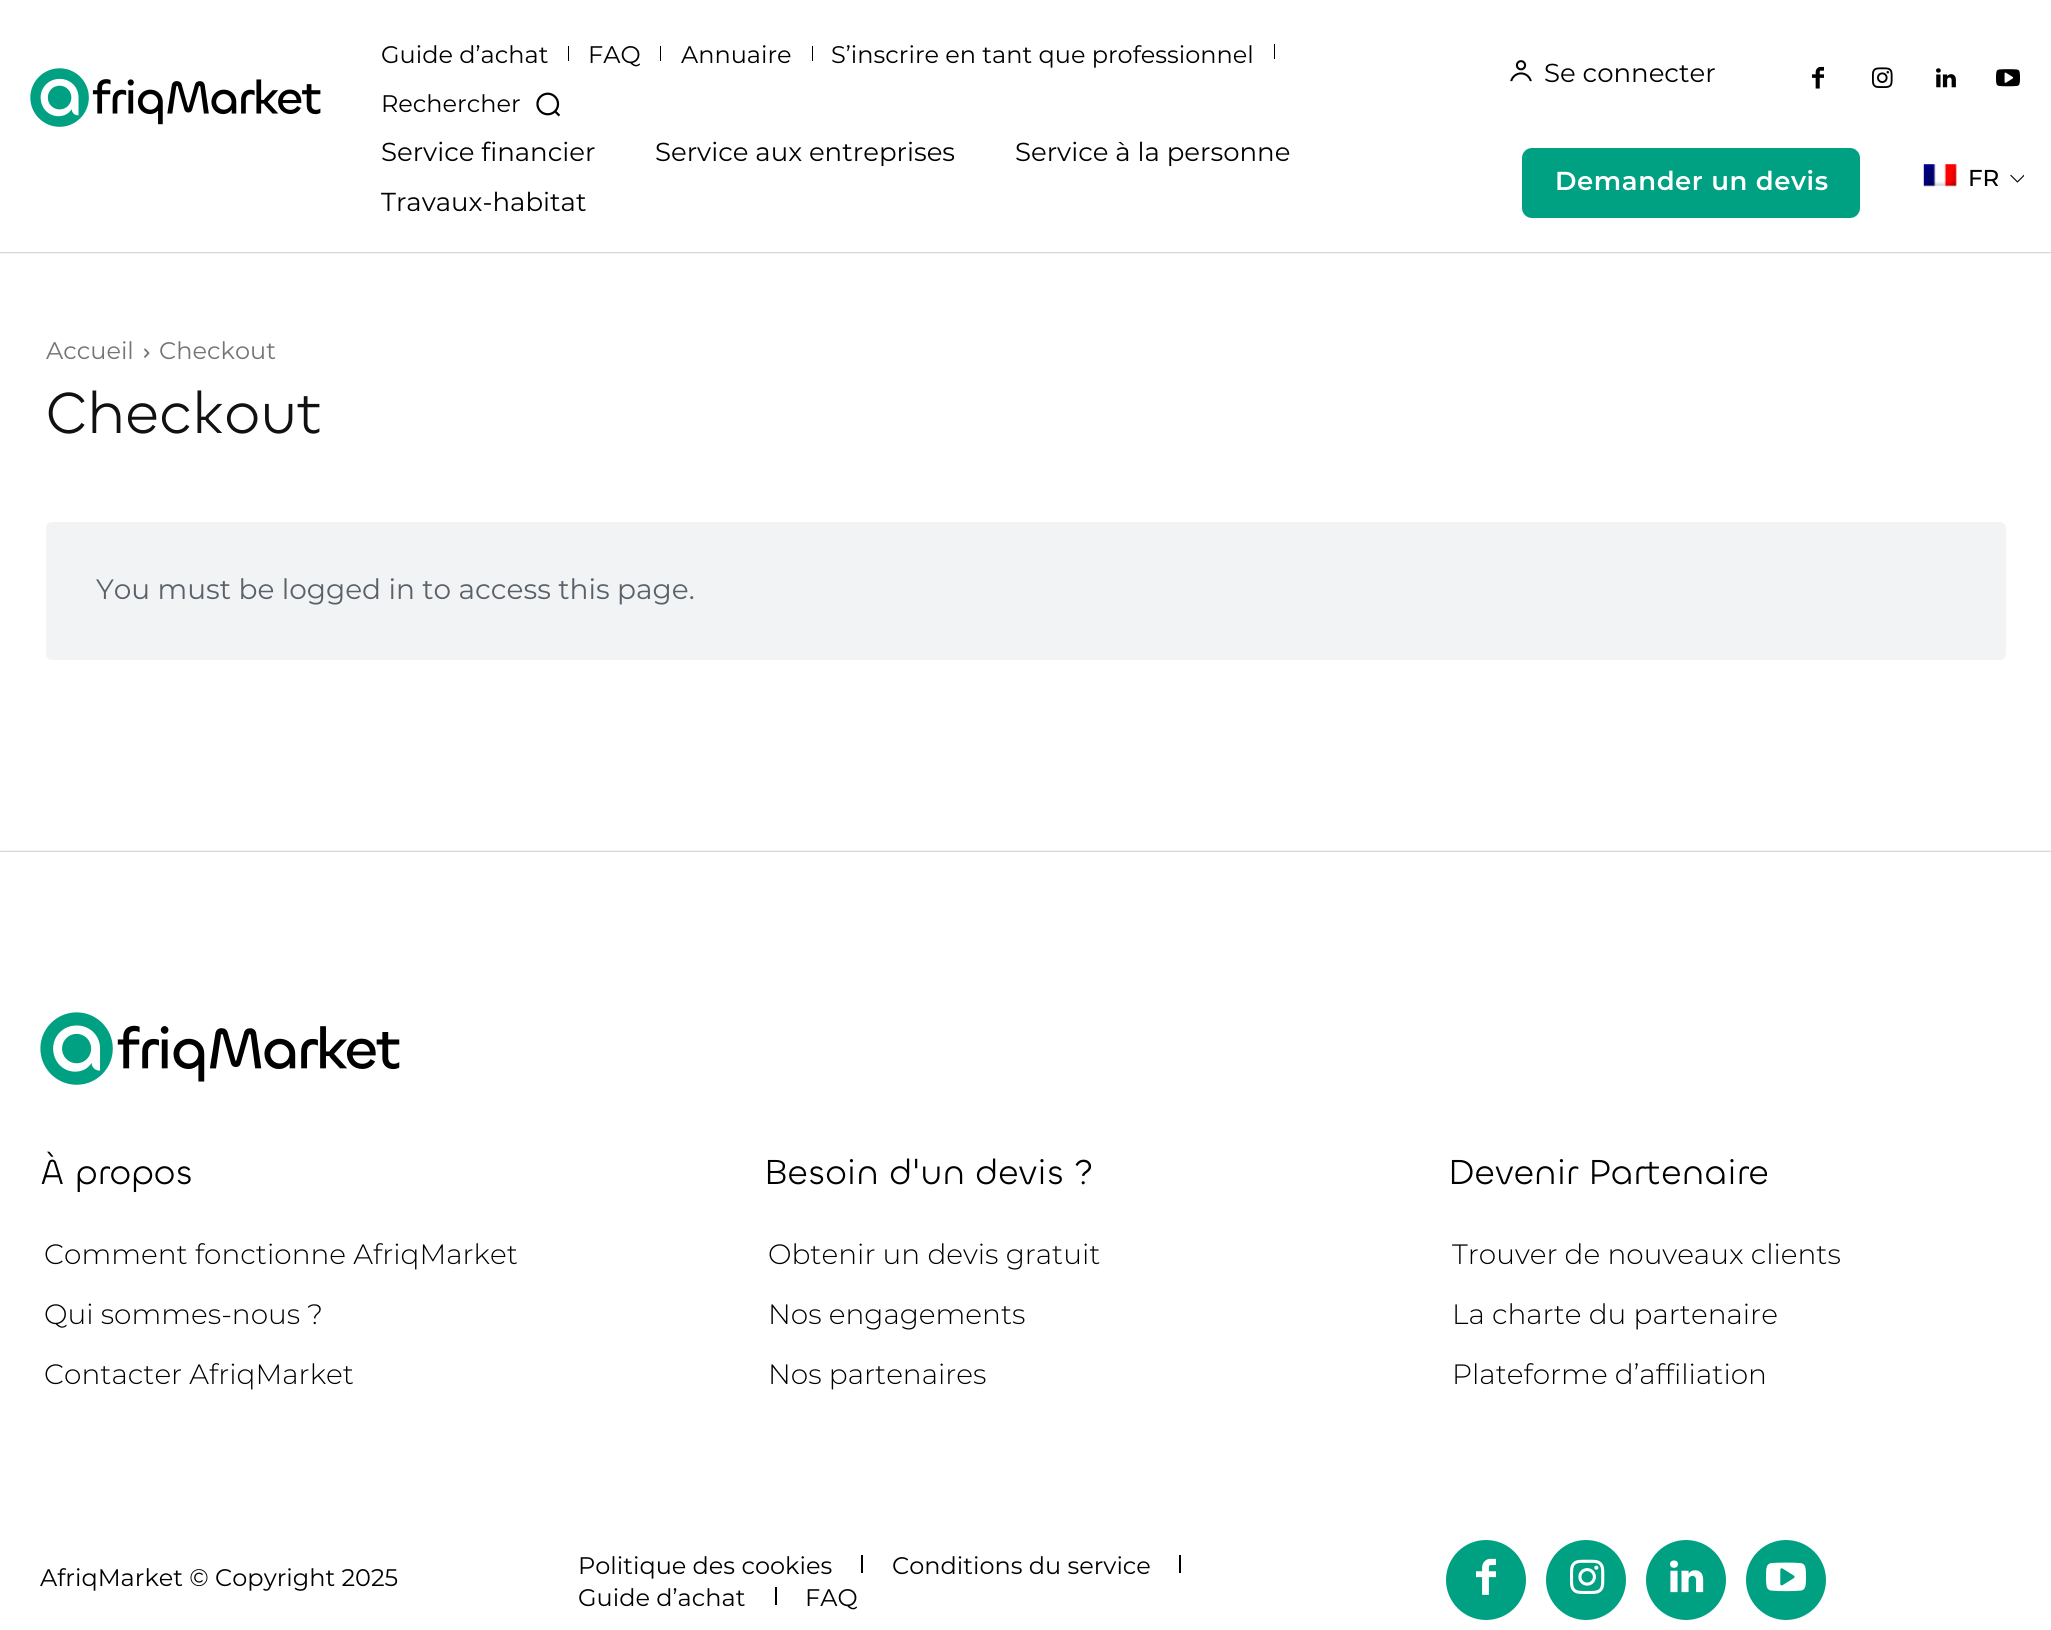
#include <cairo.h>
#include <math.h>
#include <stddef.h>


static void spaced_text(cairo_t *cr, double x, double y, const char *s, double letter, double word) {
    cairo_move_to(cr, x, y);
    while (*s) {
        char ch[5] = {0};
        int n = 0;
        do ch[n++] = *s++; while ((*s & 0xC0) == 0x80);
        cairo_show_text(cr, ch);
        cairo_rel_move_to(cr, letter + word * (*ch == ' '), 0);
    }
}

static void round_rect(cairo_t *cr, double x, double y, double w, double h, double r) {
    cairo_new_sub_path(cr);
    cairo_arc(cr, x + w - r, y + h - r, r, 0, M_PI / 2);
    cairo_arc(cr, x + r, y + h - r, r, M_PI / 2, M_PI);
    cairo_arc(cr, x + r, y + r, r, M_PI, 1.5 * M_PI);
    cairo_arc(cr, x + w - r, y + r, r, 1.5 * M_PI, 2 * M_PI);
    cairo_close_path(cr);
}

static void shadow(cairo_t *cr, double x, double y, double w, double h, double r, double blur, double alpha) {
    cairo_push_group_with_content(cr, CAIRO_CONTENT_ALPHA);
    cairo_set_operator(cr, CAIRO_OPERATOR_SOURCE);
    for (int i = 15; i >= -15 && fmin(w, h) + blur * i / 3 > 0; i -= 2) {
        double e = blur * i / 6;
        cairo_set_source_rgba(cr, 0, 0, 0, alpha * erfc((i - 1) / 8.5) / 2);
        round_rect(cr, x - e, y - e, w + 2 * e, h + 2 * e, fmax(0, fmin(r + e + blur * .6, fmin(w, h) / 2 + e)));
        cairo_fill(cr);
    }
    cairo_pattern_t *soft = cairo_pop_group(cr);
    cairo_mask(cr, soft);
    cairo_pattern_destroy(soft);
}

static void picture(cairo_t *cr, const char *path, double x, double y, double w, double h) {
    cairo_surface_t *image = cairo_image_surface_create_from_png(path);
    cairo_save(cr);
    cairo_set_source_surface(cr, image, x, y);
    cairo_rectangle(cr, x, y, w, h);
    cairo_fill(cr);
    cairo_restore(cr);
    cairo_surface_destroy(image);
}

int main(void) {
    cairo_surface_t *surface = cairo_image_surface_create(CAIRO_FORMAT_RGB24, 2051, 1630);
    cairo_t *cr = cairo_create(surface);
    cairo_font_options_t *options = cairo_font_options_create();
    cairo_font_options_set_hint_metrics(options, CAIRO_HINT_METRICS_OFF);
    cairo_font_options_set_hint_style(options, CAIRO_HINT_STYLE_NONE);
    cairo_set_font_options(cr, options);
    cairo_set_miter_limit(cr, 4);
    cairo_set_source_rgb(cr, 1, 1, 1);
    cairo_paint(cr);
    cairo_save(cr);
    cairo_rectangle(cr, 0, 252, 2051, 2);
    cairo_clip(cr);
    cairo_set_source_rgb(cr, 0.533, 0.533, 0.533);
    shadow(cr, 0, 0, 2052, 252, 0, 1, 1);
    cairo_restore(cr);
    picture(cr, "img1.png", 30, 68, 291, 59);
    cairo_select_font_face(cr, "Montserrat", CAIRO_FONT_SLANT_NORMAL, CAIRO_FONT_WEIGHT_NORMAL);
    cairo_set_font_size(cr, 24);
    cairo_set_source_rgb(cr, 0, 0, 0);
    cairo_move_to(cr, 381, 63);
    cairo_show_text(cr, "Guide d’achat");
    cairo_rectangle(cr, 568, 46, 1, 15);
    cairo_fill(cr);
    cairo_move_to(cr, 588, 63);
    cairo_show_text(cr, "FAQ");
    cairo_rectangle(cr, 660, 46, 1, 15);
    cairo_fill(cr);
    cairo_move_to(cr, 681, 63);
    cairo_show_text(cr, "Annuaire");
    cairo_rectangle(cr, 812, 46, 1, 15);
    cairo_fill(cr);
    cairo_move_to(cr, 831, 63);
    cairo_show_text(cr, "S’inscrire en tant que professionnel");
    cairo_rectangle(cr, 1274, 44, 1, 15);
    cairo_fill(cr);
    cairo_move_to(cr, 381, 112);
    cairo_show_text(cr, "Rechercher");
    picture(cr, "img2.png", 536, 92, 25, 25);
    picture(cr, "img3.png", 1510, 60, 22, 22);
    cairo_set_font_size(cr, 26);
    cairo_move_to(cr, 1544, 82);
    cairo_show_text(cr, "Se connecter");
    picture(cr, "img4.png", 1812, 66, 12, 23);
    picture(cr, "img5.png", 1872, 67, 21, 21);
    picture(cr, "img6.png", 1936, 68, 20, 20);
    picture(cr, "img7.png", 1996, 69, 24, 18);
    cairo_move_to(cr, 381, 161);
    cairo_show_text(cr, "Service financier");
    cairo_move_to(cr, 655, 161);
    cairo_show_text(cr, "Service aux entreprises");
    cairo_move_to(cr, 1015, 161);
    cairo_show_text(cr, "Service à la personne");
    cairo_move_to(cr, 381, 211);
    cairo_show_text(cr, "Travaux-habitat");
    cairo_set_source_rgb(cr, 0, 0.627, 0.51);
    round_rect(cr, 1522, 148, 338, 70, 10);
    cairo_fill(cr);
    cairo_select_font_face(cr, "Montserrat SemiBold", CAIRO_FONT_SLANT_NORMAL, CAIRO_FONT_WEIGHT_NORMAL);
    cairo_set_source_rgb(cr, 1, 1, 1);
    spaced_text(cr, 1555, 190, "Demander un devis", 0.6, 0);
    picture(cr, "img8.png", 2010, 174, 14, 9);
    picture(cr, "img9.png", 1923, 164, 34, 23);
    cairo_select_font_face(cr, "Montserrat Medium", CAIRO_FONT_SLANT_NORMAL, CAIRO_FONT_WEIGHT_NORMAL);
    cairo_set_font_size(cr, 23);
    cairo_set_source_rgb(cr, 0, 0, 0);
    cairo_move_to(cr, 1968, 186);
    cairo_show_text(cr, "FR");
    cairo_select_font_face(cr, "Montserrat", CAIRO_FONT_SLANT_NORMAL, CAIRO_FONT_WEIGHT_NORMAL);
    cairo_set_font_size(cr, 24);
    cairo_set_source_rgb(cr, 0.455, 0.455, 0.455);
    cairo_move_to(cr, 46, 359);
    cairo_show_text(cr, "Accueil");
    picture(cr, "img10.png", 144, 348, 6, 10);
    cairo_move_to(cr, 159, 359);
    cairo_show_text(cr, "Checkout");
    cairo_select_font_face(cr, "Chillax", CAIRO_FONT_SLANT_NORMAL, CAIRO_FONT_WEIGHT_NORMAL);
    cairo_set_font_size(cr, 60);
    cairo_set_source_rgb(cr, 0.067, 0.067, 0.067);
    cairo_move_to(cr, 46, 433);
    cairo_show_text(cr, "Checkout");
    cairo_set_source_rgb(cr, 0.949, 0.953, 0.957);
    round_rect(cr, 46, 522, 1960, 138, 6);
    cairo_fill(cr);
    cairo_select_font_face(cr, "Montserrat", CAIRO_FONT_SLANT_NORMAL, CAIRO_FONT_WEIGHT_NORMAL);
    cairo_set_font_size(cr, 28);
    cairo_set_source_rgb(cr, 0.349, 0.384, 0.42);
    cairo_move_to(cr, 96, 599);
    cairo_show_text(cr, "You must be logged in to access this page.");
    cairo_save(cr);
    cairo_rectangle(cr, 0, 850, 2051, 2);
    cairo_clip(cr);
    cairo_set_source_rgb(cr, 0.533, 0.533, 0.533);
    shadow(cr, 0, 852, 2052, 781, 0, 1, 1);
    cairo_restore(cr);
    picture(cr, "img11.png", 40, 1012, 360, 73);
    cairo_select_font_face(cr, "Chillax", CAIRO_FONT_SLANT_NORMAL, CAIRO_FONT_WEIGHT_NORMAL);
    cairo_set_font_size(cr, 36);
    cairo_set_source_rgb(cr, 0, 0, 0);
    cairo_move_to(cr, 40, 1184);
    cairo_show_text(cr, "À propos");
    cairo_select_font_face(cr, "Montserrat Light", CAIRO_FONT_SLANT_NORMAL, CAIRO_FONT_WEIGHT_NORMAL);
    cairo_set_font_size(cr, 28);
    cairo_move_to(cr, 44, 1264);
    cairo_show_text(cr, "Comment fonctionne AfriqMarket");
    cairo_move_to(cr, 44, 1324);
    cairo_show_text(cr, "Qui sommes-nous ?");
    cairo_move_to(cr, 44, 1384);
    cairo_show_text(cr, "Contacter AfriqMarket");
    cairo_select_font_face(cr, "Chillax", CAIRO_FONT_SLANT_NORMAL, CAIRO_FONT_WEIGHT_NORMAL);
    cairo_set_font_size(cr, 36);
    cairo_move_to(cr, 764, 1184);
    cairo_show_text(cr, "Besoin d'un devis ?");
    cairo_select_font_face(cr, "Montserrat Light", CAIRO_FONT_SLANT_NORMAL, CAIRO_FONT_WEIGHT_NORMAL);
    cairo_set_font_size(cr, 28);
    cairo_move_to(cr, 768, 1264);
    cairo_show_text(cr, "Obtenir un devis gratuit");
    cairo_move_to(cr, 768, 1324);
    cairo_show_text(cr, "Nos engagements");
    cairo_move_to(cr, 768, 1384);
    cairo_show_text(cr, "Nos partenaires");
    cairo_select_font_face(cr, "Chillax", CAIRO_FONT_SLANT_NORMAL, CAIRO_FONT_WEIGHT_NORMAL);
    cairo_set_font_size(cr, 36);
    cairo_move_to(cr, 1448, 1184);
    cairo_show_text(cr, "Devenir Partenaire");
    cairo_select_font_face(cr, "Montserrat Light", CAIRO_FONT_SLANT_NORMAL, CAIRO_FONT_WEIGHT_NORMAL);
    cairo_set_font_size(cr, 28);
    cairo_move_to(cr, 1452, 1264);
    cairo_show_text(cr, "Trouver de nouveaux clients");
    cairo_move_to(cr, 1452, 1324);
    cairo_show_text(cr, "La charte du partenaire");
    cairo_move_to(cr, 1452, 1384);
    cairo_show_text(cr, "Plateforme d’affiliation");
    cairo_select_font_face(cr, "Montserrat", CAIRO_FONT_SLANT_NORMAL, CAIRO_FONT_WEIGHT_NORMAL);
    cairo_set_font_size(cr, 24);
    cairo_move_to(cr, 40, 1586);
    cairo_show_text(cr, "AfriqMarket © Copyright 2025");
    cairo_move_to(cr, 578, 1574);
    cairo_show_text(cr, "Politique des cookies");
    cairo_rectangle(cr, 861, 1555, 2, 18);
    cairo_fill(cr);
    cairo_move_to(cr, 892, 1574);
    cairo_show_text(cr, "Conditions du service");
    cairo_rectangle(cr, 1179, 1555, 2, 18);
    cairo_fill(cr);
    cairo_move_to(cr, 578, 1606);
    cairo_show_text(cr, "Guide d’achat");
    cairo_rectangle(cr, 775, 1587, 2, 18);
    cairo_fill(cr);
    cairo_move_to(cr, 805, 1606);
    cairo_show_text(cr, "FAQ");
    cairo_set_source_rgb(cr, 0, 0.627, 0.51);
    cairo_new_path(cr);
    cairo_arc(cr, 1486, 1580, 40, 0, 2 * M_PI);
    cairo_fill(cr);
    picture(cr, "img12.png", 1476, 1558, 20, 37);
    cairo_arc(cr, 1586, 1580, 40, 0, 2 * M_PI);
    cairo_fill(cr);
    picture(cr, "img13.png", 1570, 1559, 35, 35);
    cairo_arc(cr, 1686, 1580, 40, 0, 2 * M_PI);
    cairo_fill(cr);
    picture(cr, "img14.png", 1670, 1560, 34, 33);
    cairo_arc(cr, 1786, 1580, 40, 0, 2 * M_PI);
    cairo_fill(cr);
    picture(cr, "img15.png", 1766, 1562, 40, 30);
    cairo_surface_write_to_png(surface, "page.png");
    cairo_font_options_destroy(options);
    cairo_destroy(cr);
    cairo_surface_destroy(surface);
    return 0;
}
